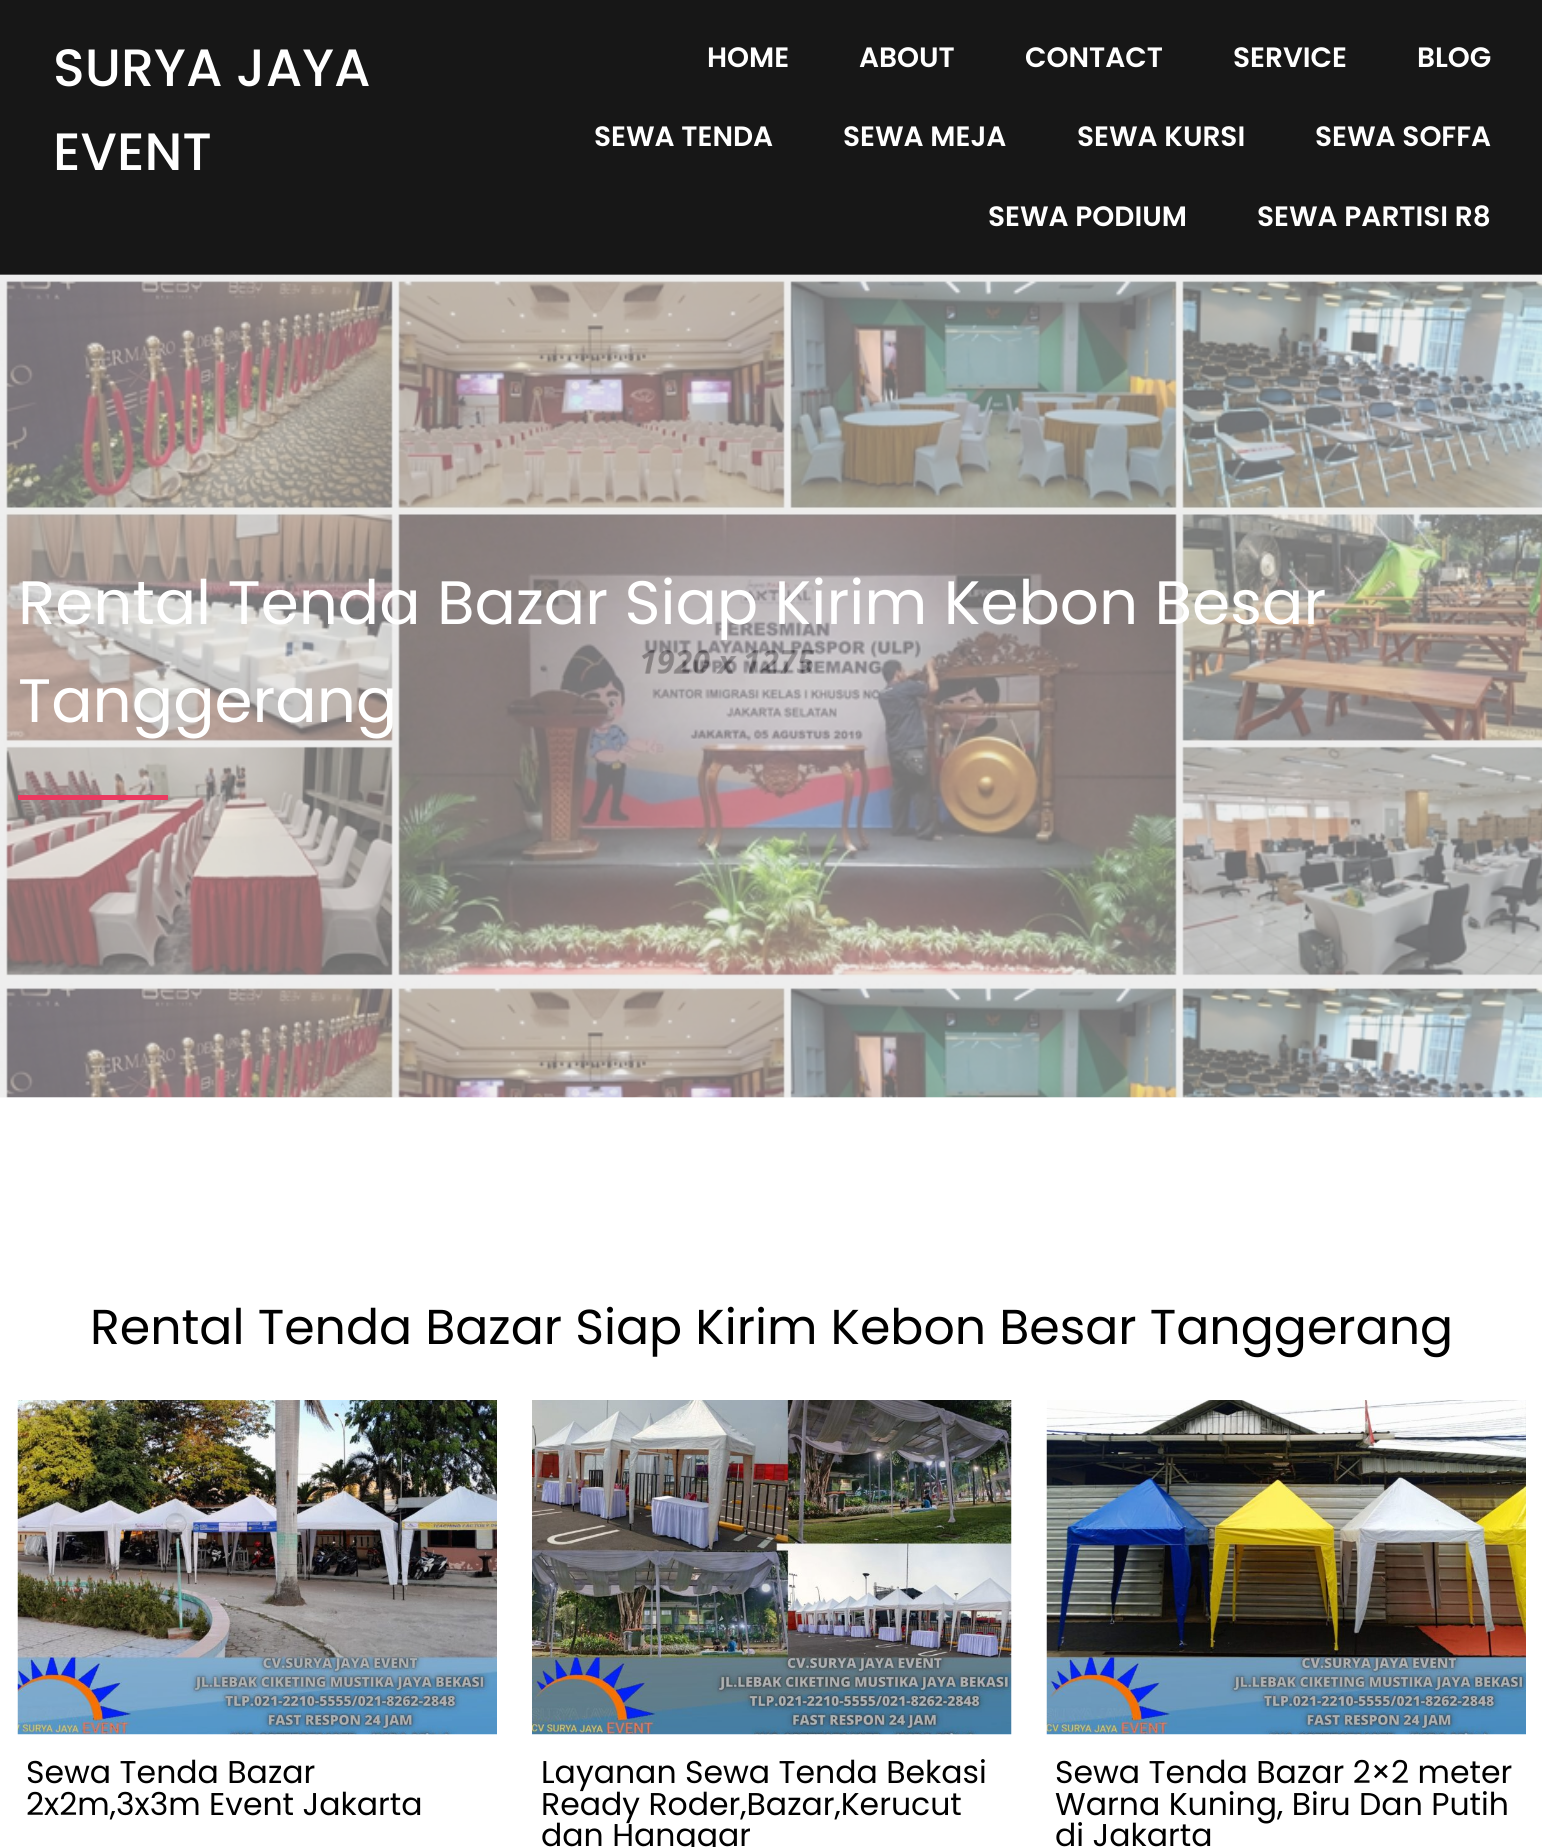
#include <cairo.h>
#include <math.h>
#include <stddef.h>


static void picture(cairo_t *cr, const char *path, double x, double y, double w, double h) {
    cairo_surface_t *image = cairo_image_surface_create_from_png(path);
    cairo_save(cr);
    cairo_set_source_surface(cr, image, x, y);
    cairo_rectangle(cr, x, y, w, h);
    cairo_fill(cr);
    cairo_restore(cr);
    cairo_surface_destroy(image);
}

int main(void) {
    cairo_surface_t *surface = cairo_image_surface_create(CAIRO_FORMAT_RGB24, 1542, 1847);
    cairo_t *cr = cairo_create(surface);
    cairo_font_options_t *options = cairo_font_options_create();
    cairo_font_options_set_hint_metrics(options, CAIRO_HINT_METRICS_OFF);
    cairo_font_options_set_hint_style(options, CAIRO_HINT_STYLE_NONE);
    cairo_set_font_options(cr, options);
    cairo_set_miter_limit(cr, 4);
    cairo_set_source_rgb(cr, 1, 1, 1);
    cairo_paint(cr);
    cairo_set_source_rgb(cr, 0.09, 0.09, 0.09);
    cairo_rectangle(cr, 0, 0, 1542, 275);
    cairo_fill(cr);
    cairo_select_font_face(cr, "Poppins Medium", CAIRO_FONT_SLANT_NORMAL, CAIRO_FONT_WEIGHT_NORMAL);
    cairo_set_font_size(cr, 52.5);
    cairo_set_source_rgb(cr, 1, 1, 1);
    cairo_move_to(cr, 53, 86);
    cairo_show_text(cr, "SURYA JAYA");
    cairo_move_to(cr, 53, 170);
    cairo_show_text(cr, "EVENT");
    cairo_select_font_face(cr, "Poppins SemiBold", CAIRO_FONT_SLANT_NORMAL, CAIRO_FONT_WEIGHT_NORMAL);
    cairo_set_font_size(cr, 28);
    cairo_move_to(cr, 707, 67);
    cairo_show_text(cr, "HOME");
    cairo_move_to(cr, 859, 67);
    cairo_show_text(cr, "ABOUT");
    cairo_move_to(cr, 1025, 67);
    cairo_show_text(cr, "CONTACT");
    cairo_move_to(cr, 1233, 67);
    cairo_show_text(cr, "SERVICE");
    cairo_move_to(cr, 1417, 67);
    cairo_show_text(cr, "BLOG");
    cairo_move_to(cr, 594, 146);
    cairo_show_text(cr, "SEWA TENDA");
    cairo_move_to(cr, 843, 146);
    cairo_show_text(cr, "SEWA MEJA");
    cairo_move_to(cr, 1077, 146);
    cairo_show_text(cr, "SEWA KURSI");
    cairo_move_to(cr, 1315, 146);
    cairo_show_text(cr, "SEWA SOFFA");
    cairo_move_to(cr, 988, 226);
    cairo_show_text(cr, "SEWA PODIUM");
    cairo_move_to(cr, 1257, 226);
    cairo_show_text(cr, "SEWA PARTISI R8");
    picture(cr, "img1.png", 0, 274, 1542, 824);
    picture(cr, "img2.png", 0, 274, 1542, 824);
    cairo_select_font_face(cr, "Poppins", CAIRO_FONT_SLANT_NORMAL, CAIRO_FONT_WEIGHT_NORMAL);
    cairo_set_font_size(cr, 61.25);
    cairo_move_to(cr, 18, 624);
    cairo_show_text(cr, "Rental Tenda Bazar Siap Kirim Kebon Besar");
    cairo_move_to(cr, 18, 722);
    cairo_show_text(cr, "Tanggerang");
    cairo_set_source_rgb(cr, 0.918, 0.227, 0.376);
    cairo_rectangle(cr, 18, 795, 150, 5);
    cairo_fill(cr);
    cairo_set_font_size(cr, 49);
    cairo_set_source_rgb(cr, 0, 0, 0);
    cairo_move_to(cr, 90, 1344);
    cairo_show_text(cr, "Rental Tenda Bazar Siap Kirim Kebon Besar Tanggerang");
    picture(cr, "img3.png", 17, 1400, 480, 335);
    cairo_set_font_size(cr, 31.5);
    cairo_move_to(cr, 26, 1783);
    cairo_show_text(cr, "Sewa Tenda Bazar");
    cairo_move_to(cr, 26, 1815);
    cairo_show_text(cr, "2x2m,3x3m Event Jakarta");
    picture(cr, "img4.png", 532, 1400, 480, 335);
    cairo_move_to(cr, 541, 1783);
    cairo_show_text(cr, "Layanan Sewa Tenda Bekasi");
    cairo_move_to(cr, 541, 1815);
    cairo_show_text(cr, "Ready Roder,Bazar,Kerucut");
    cairo_move_to(cr, 541, 1846);
    cairo_show_text(cr, "dan Hanggar");
    picture(cr, "img5.png", 1046, 1400, 480, 335);
    cairo_move_to(cr, 1055, 1783);
    cairo_show_text(cr, "Sewa Tenda Bazar 2×2 meter");
    cairo_move_to(cr, 1055, 1815);
    cairo_show_text(cr, "Warna Kuning, Biru Dan Putih");
    cairo_move_to(cr, 1055, 1846);
    cairo_show_text(cr, "di Jakarta");
    cairo_surface_write_to_png(surface, "page.png");
    cairo_font_options_destroy(options);
    cairo_destroy(cr);
    cairo_surface_destroy(surface);
    return 0;
}
